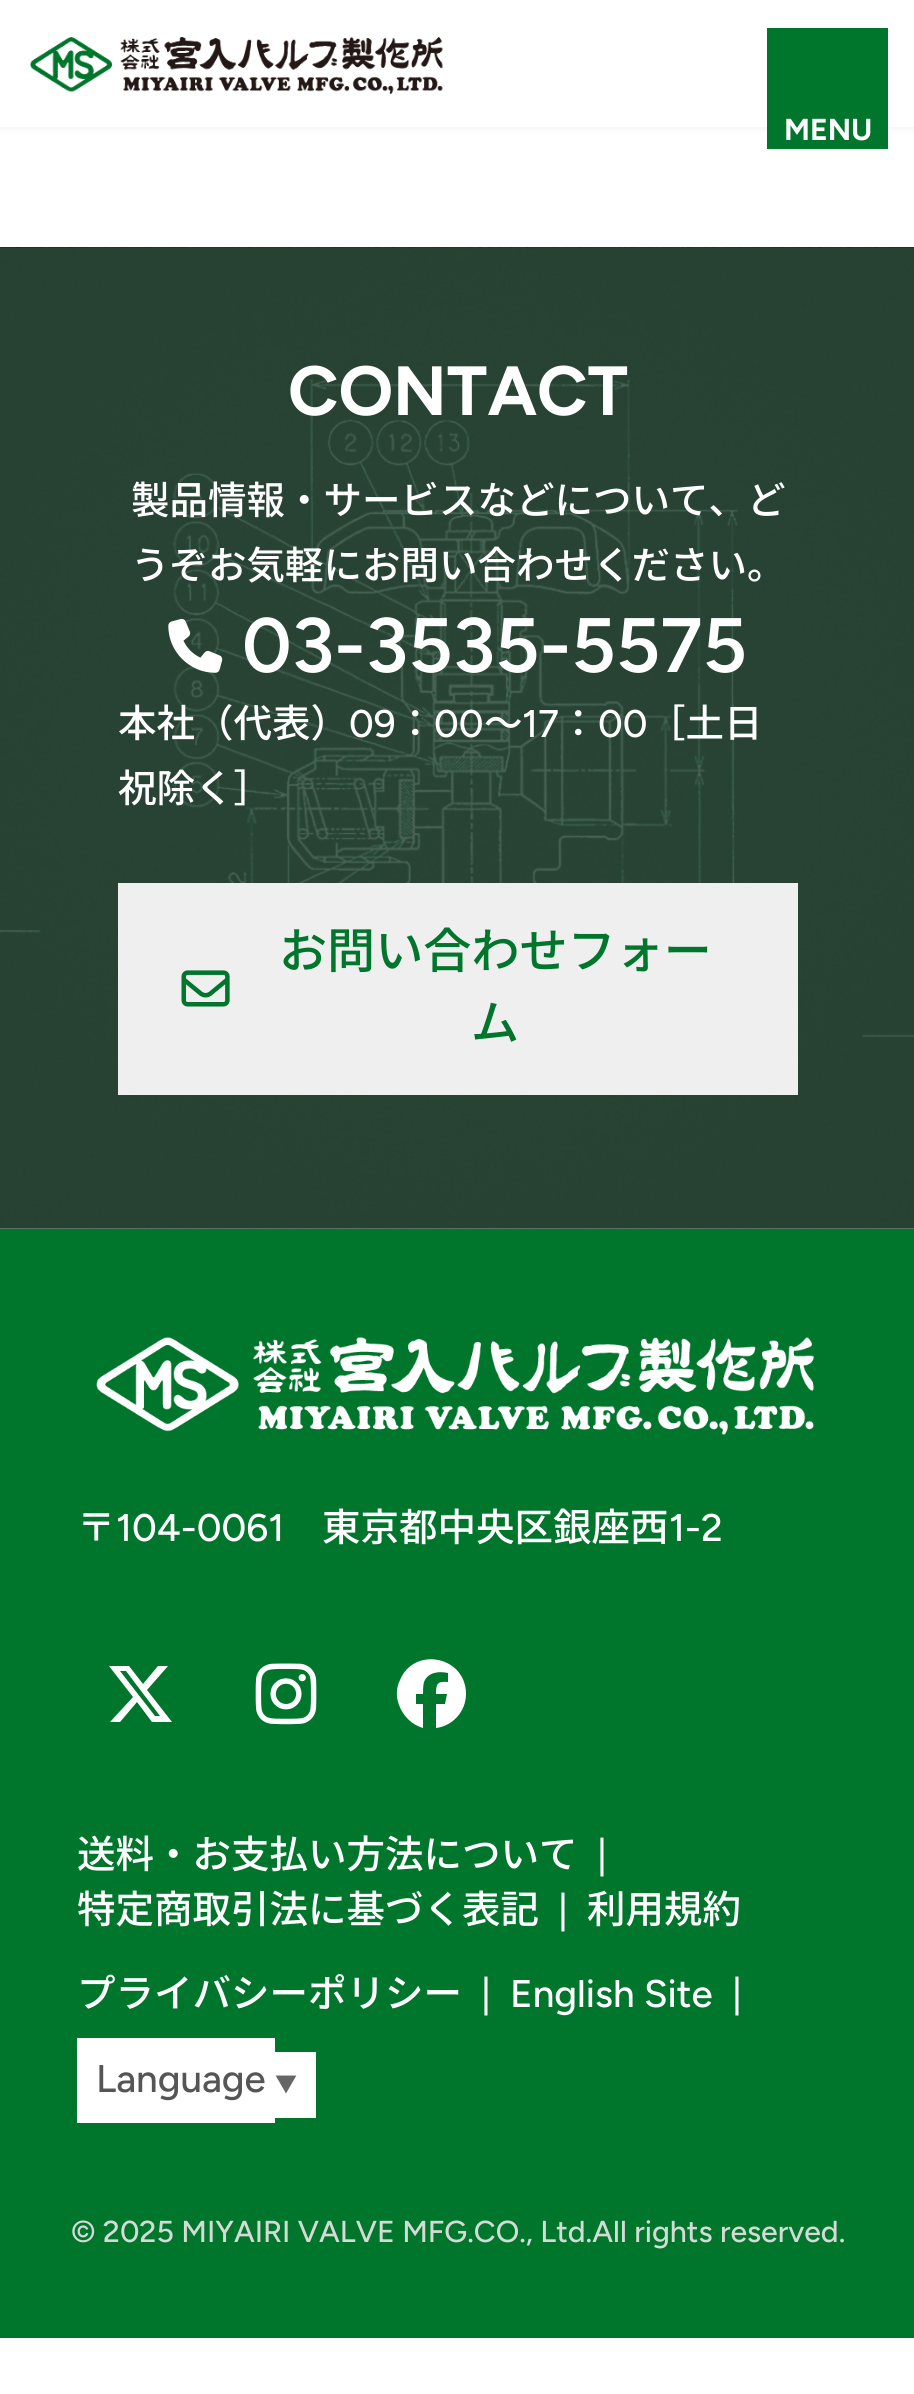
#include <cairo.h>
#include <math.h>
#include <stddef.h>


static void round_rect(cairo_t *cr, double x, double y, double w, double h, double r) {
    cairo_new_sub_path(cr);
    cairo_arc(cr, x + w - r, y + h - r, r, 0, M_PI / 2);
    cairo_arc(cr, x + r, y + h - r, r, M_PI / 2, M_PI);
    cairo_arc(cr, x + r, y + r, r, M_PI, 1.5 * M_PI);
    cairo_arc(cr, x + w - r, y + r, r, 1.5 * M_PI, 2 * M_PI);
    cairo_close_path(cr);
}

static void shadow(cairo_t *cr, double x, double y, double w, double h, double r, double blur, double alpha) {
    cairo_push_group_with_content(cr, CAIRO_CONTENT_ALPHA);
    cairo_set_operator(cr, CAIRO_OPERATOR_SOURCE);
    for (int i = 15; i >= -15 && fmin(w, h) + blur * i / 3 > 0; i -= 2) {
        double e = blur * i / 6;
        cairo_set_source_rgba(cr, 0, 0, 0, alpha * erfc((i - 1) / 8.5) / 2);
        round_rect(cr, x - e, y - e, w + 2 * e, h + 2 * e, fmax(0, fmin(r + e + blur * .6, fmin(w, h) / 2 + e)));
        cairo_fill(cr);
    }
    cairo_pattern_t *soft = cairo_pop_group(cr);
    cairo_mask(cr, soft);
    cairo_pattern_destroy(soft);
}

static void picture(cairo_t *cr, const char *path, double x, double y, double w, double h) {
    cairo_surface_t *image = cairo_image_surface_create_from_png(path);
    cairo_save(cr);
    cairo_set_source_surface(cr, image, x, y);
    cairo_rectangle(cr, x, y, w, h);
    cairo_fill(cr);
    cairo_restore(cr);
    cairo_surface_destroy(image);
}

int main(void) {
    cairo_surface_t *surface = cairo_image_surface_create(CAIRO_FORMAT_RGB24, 914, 2394);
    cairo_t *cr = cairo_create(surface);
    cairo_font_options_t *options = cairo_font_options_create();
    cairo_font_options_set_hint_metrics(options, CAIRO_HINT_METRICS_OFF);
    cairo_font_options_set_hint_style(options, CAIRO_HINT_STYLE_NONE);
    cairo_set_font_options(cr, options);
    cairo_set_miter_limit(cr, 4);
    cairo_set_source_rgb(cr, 1, 1, 1);
    cairo_paint(cr);
    cairo_set_source_rgb(cr, 0, 0, 0);
    shadow(cr, 0, 3, 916, 126, 0, 4, 0.05);
    cairo_set_source_rgb(cr, 1, 1, 1);
    cairo_rectangle(cr, 0, 0, 914, 127);
    cairo_fill(cr);
    picture(cr, "img1.png", 29, 37, 414, 57);
    cairo_set_source_rgb(cr, 0, 0.459, 0.173);
    cairo_rectangle(cr, 767, 28, 121, 121);
    cairo_fill(cr);
    cairo_select_font_face(cr, "Figtree", CAIRO_FONT_SLANT_NORMAL, CAIRO_FONT_WEIGHT_BOLD);
    cairo_set_font_size(cr, 30.25);
    cairo_set_source_rgb(cr, 1, 1, 1);
    cairo_move_to(cr, 784, 140);
    cairo_show_text(cr, "MENU");
    picture(cr, "img2.png", 0, 247, 914, 982);
    cairo_set_font_size(cr, 69.5);
    cairo_move_to(cr, 288, 415);
    cairo_show_text(cr, "CONTACT");
    cairo_select_font_face(cr, "Noto Sans JP Medium", CAIRO_FONT_SLANT_NORMAL, CAIRO_FONT_WEIGHT_NORMAL);
    cairo_set_font_size(cr, 38.5);
    cairo_move_to(cr, 131, 514);
    cairo_show_text(cr, "製品情報・サービスなどについて、ど");
    cairo_move_to(cr, 131, 579);
    cairo_show_text(cr, "うぞお気軽にお問い合わせください。");
    picture(cr, "img3.png", 168, 618, 55, 55);
    cairo_select_font_face(cr, "Figtree SemiBold", CAIRO_FONT_SLANT_NORMAL, CAIRO_FONT_WEIGHT_NORMAL);
    cairo_set_font_size(cr, 77);
    cairo_move_to(cr, 242, 672);
    cairo_show_text(cr, "03-3535-5575");
    cairo_select_font_face(cr, "Noto Sans JP Medium", CAIRO_FONT_SLANT_NORMAL, CAIRO_FONT_WEIGHT_NORMAL);
    cairo_set_font_size(cr, 38.5);
    cairo_move_to(cr, 118, 737);
    cairo_show_text(cr, "本社（代表）");
    cairo_select_font_face(cr, "Figtree Medium", CAIRO_FONT_SLANT_NORMAL, CAIRO_FONT_WEIGHT_NORMAL);
    cairo_move_to(cr, 349, 737);
    cairo_show_text(cr, "09");
    cairo_select_font_face(cr, "Noto Sans JP Medium", CAIRO_FONT_SLANT_NORMAL, CAIRO_FONT_WEIGHT_NORMAL);
    cairo_move_to(cr, 396, 737);
    cairo_show_text(cr, "：");
    cairo_select_font_face(cr, "Figtree Medium", CAIRO_FONT_SLANT_NORMAL, CAIRO_FONT_WEIGHT_NORMAL);
    cairo_move_to(cr, 434, 737);
    cairo_show_text(cr, "00");
    cairo_select_font_face(cr, "Noto Sans JP Medium", CAIRO_FONT_SLANT_NORMAL, CAIRO_FONT_WEIGHT_NORMAL);
    cairo_move_to(cr, 484, 737);
    cairo_show_text(cr, "～");
    cairo_select_font_face(cr, "Figtree Medium", CAIRO_FONT_SLANT_NORMAL, CAIRO_FONT_WEIGHT_NORMAL);
    cairo_move_to(cr, 522, 737);
    cairo_show_text(cr, "17");
    cairo_select_font_face(cr, "Noto Sans JP Medium", CAIRO_FONT_SLANT_NORMAL, CAIRO_FONT_WEIGHT_NORMAL);
    cairo_move_to(cr, 559, 737);
    cairo_show_text(cr, "：");
    cairo_select_font_face(cr, "Figtree Medium", CAIRO_FONT_SLANT_NORMAL, CAIRO_FONT_WEIGHT_NORMAL);
    cairo_move_to(cr, 598, 737);
    cairo_show_text(cr, "00");
    cairo_select_font_face(cr, "Noto Sans JP Medium", CAIRO_FONT_SLANT_NORMAL, CAIRO_FONT_WEIGHT_NORMAL);
    cairo_move_to(cr, 647, 737);
    cairo_show_text(cr, "［土日");
    cairo_move_to(cr, 118, 802);
    cairo_show_text(cr, "祝除く］");
    cairo_set_source_rgb(cr, 0.937, 0.937, 0.937);
    cairo_rectangle(cr, 118, 883, 680, 212);
    cairo_fill(cr);
    picture(cr, "img4.png", 181, 970, 49, 37);
    cairo_set_font_size(cr, 48.1);
    cairo_set_source_rgb(cr, 0, 0.459, 0.173);
    cairo_move_to(cr, 279, 968);
    cairo_show_text(cr, "お問い合わせフォー");
    cairo_move_to(cr, 471, 1040);
    cairo_show_text(cr, "ム");
    cairo_rectangle(cr, 0, 1229, 914, 1109);
    cairo_fill(cr);
    picture(cr, "img5.png", 96, 1337, 718, 98);
    cairo_set_font_size(cr, 38.5);
    cairo_set_source_rgb(cr, 1, 1, 1);
    cairo_move_to(cr, 77, 1541);
    cairo_show_text(cr, "〒");
    cairo_select_font_face(cr, "Figtree Medium", CAIRO_FONT_SLANT_NORMAL, CAIRO_FONT_WEIGHT_NORMAL);
    cairo_move_to(cr, 116, 1541);
    cairo_show_text(cr, "104-0061");
    cairo_select_font_face(cr, "Noto Sans JP Medium", CAIRO_FONT_SLANT_NORMAL, CAIRO_FONT_WEIGHT_NORMAL);
    cairo_move_to(cr, 322, 1541);
    cairo_show_text(cr, "東京都中央区銀座西");
    cairo_select_font_face(cr, "Figtree Medium", CAIRO_FONT_SLANT_NORMAL, CAIRO_FONT_WEIGHT_NORMAL);
    cairo_move_to(cr, 669, 1541);
    cairo_show_text(cr, "1-2");
    cairo_new_path(cr);
    cairo_move_to(cr, 158, 1666);
    cairo_line_to(cr, 168, 1666);
    cairo_line_to(cr, 158, 1666);
    cairo_line_to(cr, 168, 1666);
    cairo_line_to(cr, 147, 1690);
    cairo_line_to(cr, 172, 1722);
    cairo_line_to(cr, 152, 1722);
    cairo_line_to(cr, 137, 1702);
    cairo_line_to(cr, 120, 1722);
    cairo_line_to(cr, 110, 1722);
    cairo_line_to(cr, 133, 1697);
    cairo_line_to(cr, 109, 1666);
    cairo_line_to(cr, 129, 1666);
    cairo_line_to(cr, 143, 1684);
    cairo_close_path(cr);
    cairo_move_to(cr, 155, 1716);
    cairo_line_to(cr, 160, 1716);
    cairo_line_to(cr, 155, 1716);
    cairo_line_to(cr, 160, 1716);
    cairo_line_to(cr, 126, 1671);
    cairo_line_to(cr, 120, 1671);
    cairo_close_path(cr);
    cairo_fill(cr);
    picture(cr, "img6.png", 255, 1663, 62, 62);
    cairo_new_path(cr);
    cairo_move_to(cr, 466, 1694);
    cairo_curve_to(cr, 466, 1656, 414, 1646, 400, 1680);
    cairo_curve_to(cr, 396, 1688, 396, 1697, 399, 1705);
    cairo_curve_to(cr, 403, 1716, 412, 1725, 423, 1728);
    cairo_line_to(cr, 423, 1704);
    cairo_line_to(cr, 416, 1704);
    cairo_line_to(cr, 416, 1694);
    cairo_line_to(cr, 423, 1694);
    cairo_curve_to(cr, 423, 1690, 423, 1686, 424, 1682);
    cairo_curve_to(cr, 428, 1672, 439, 1671, 448, 1673);
    cairo_line_to(cr, 448, 1682);
    cairo_curve_to(cr, 437, 1681, 436, 1684, 436, 1694);
    cairo_line_to(cr, 447, 1694);
    cairo_line_to(cr, 445, 1704);
    cairo_line_to(cr, 436, 1704);
    cairo_line_to(cr, 436, 1728);
    cairo_curve_to(cr, 453, 1726, 466, 1711, 466, 1694);
    cairo_close_path(cr);
    cairo_fill(cr);
    cairo_select_font_face(cr, "Noto Sans JP Medium", CAIRO_FONT_SLANT_NORMAL, CAIRO_FONT_WEIGHT_NORMAL);
    cairo_move_to(cr, 77, 1868);
    cairo_show_text(cr, "送料・お支払い方法について");
    cairo_select_font_face(cr, "Figtree Medium", CAIRO_FONT_SLANT_NORMAL, CAIRO_FONT_WEIGHT_NORMAL);
    cairo_move_to(cr, 597, 1868);
    cairo_show_text(cr, "|");
    cairo_select_font_face(cr, "Noto Sans JP Medium", CAIRO_FONT_SLANT_NORMAL, CAIRO_FONT_WEIGHT_NORMAL);
    cairo_move_to(cr, 77, 1923);
    cairo_show_text(cr, "特定商取引法に基づく表記");
    cairo_select_font_face(cr, "Figtree Medium", CAIRO_FONT_SLANT_NORMAL, CAIRO_FONT_WEIGHT_NORMAL);
    cairo_move_to(cr, 558, 1923);
    cairo_show_text(cr, "|");
    cairo_select_font_face(cr, "Noto Sans JP Medium", CAIRO_FONT_SLANT_NORMAL, CAIRO_FONT_WEIGHT_NORMAL);
    cairo_move_to(cr, 587, 1923);
    cairo_show_text(cr, "利用規約");
    cairo_move_to(cr, 77, 2007);
    cairo_show_text(cr, "プライバシーポリシー");
    cairo_select_font_face(cr, "Figtree Medium", CAIRO_FONT_SLANT_NORMAL, CAIRO_FONT_WEIGHT_NORMAL);
    cairo_move_to(cr, 481, 2007);
    cairo_show_text(cr, "|");
    cairo_move_to(cr, 510, 2007);
    cairo_show_text(cr, "English Site");
    cairo_move_to(cr, 732, 2007);
    cairo_show_text(cr, "|");
    cairo_rectangle(cr, 77, 2038, 198, 85);
    cairo_fill(cr);
    cairo_set_source_rgb(cr, 0.333, 0.333, 0.333);
    cairo_move_to(cr, 96, 2092);
    cairo_show_text(cr, "Language");
    cairo_set_source_rgb(cr, 1, 1, 1);
    cairo_rectangle(cr, 275, 2052, 41, 66);
    cairo_fill(cr);
    cairo_select_font_face(cr, "Noto Sans JP", CAIRO_FONT_SLANT_NORMAL, CAIRO_FONT_WEIGHT_BOLD);
    cairo_set_font_size(cr, 22);
    cairo_set_source_rgb(cr, 0.4, 0.4, 0.4);
    cairo_move_to(cr, 275, 2092);
    cairo_show_text(cr, "▼");
    cairo_select_font_face(cr, "Figtree Medium", CAIRO_FONT_SLANT_NORMAL, CAIRO_FONT_WEIGHT_NORMAL);
    cairo_set_font_size(cr, 30.25);
    cairo_set_source_rgb(cr, 0.831, 0.859, 0.831);
    cairo_move_to(cr, 71, 2242);
    cairo_show_text(cr, "© 2025 MIYAIRI VALVE MFG.CO., Ltd.All rights reserved.");
    cairo_surface_write_to_png(surface, "page.png");
    cairo_font_options_destroy(options);
    cairo_destroy(cr);
    cairo_surface_destroy(surface);
    return 0;
}
